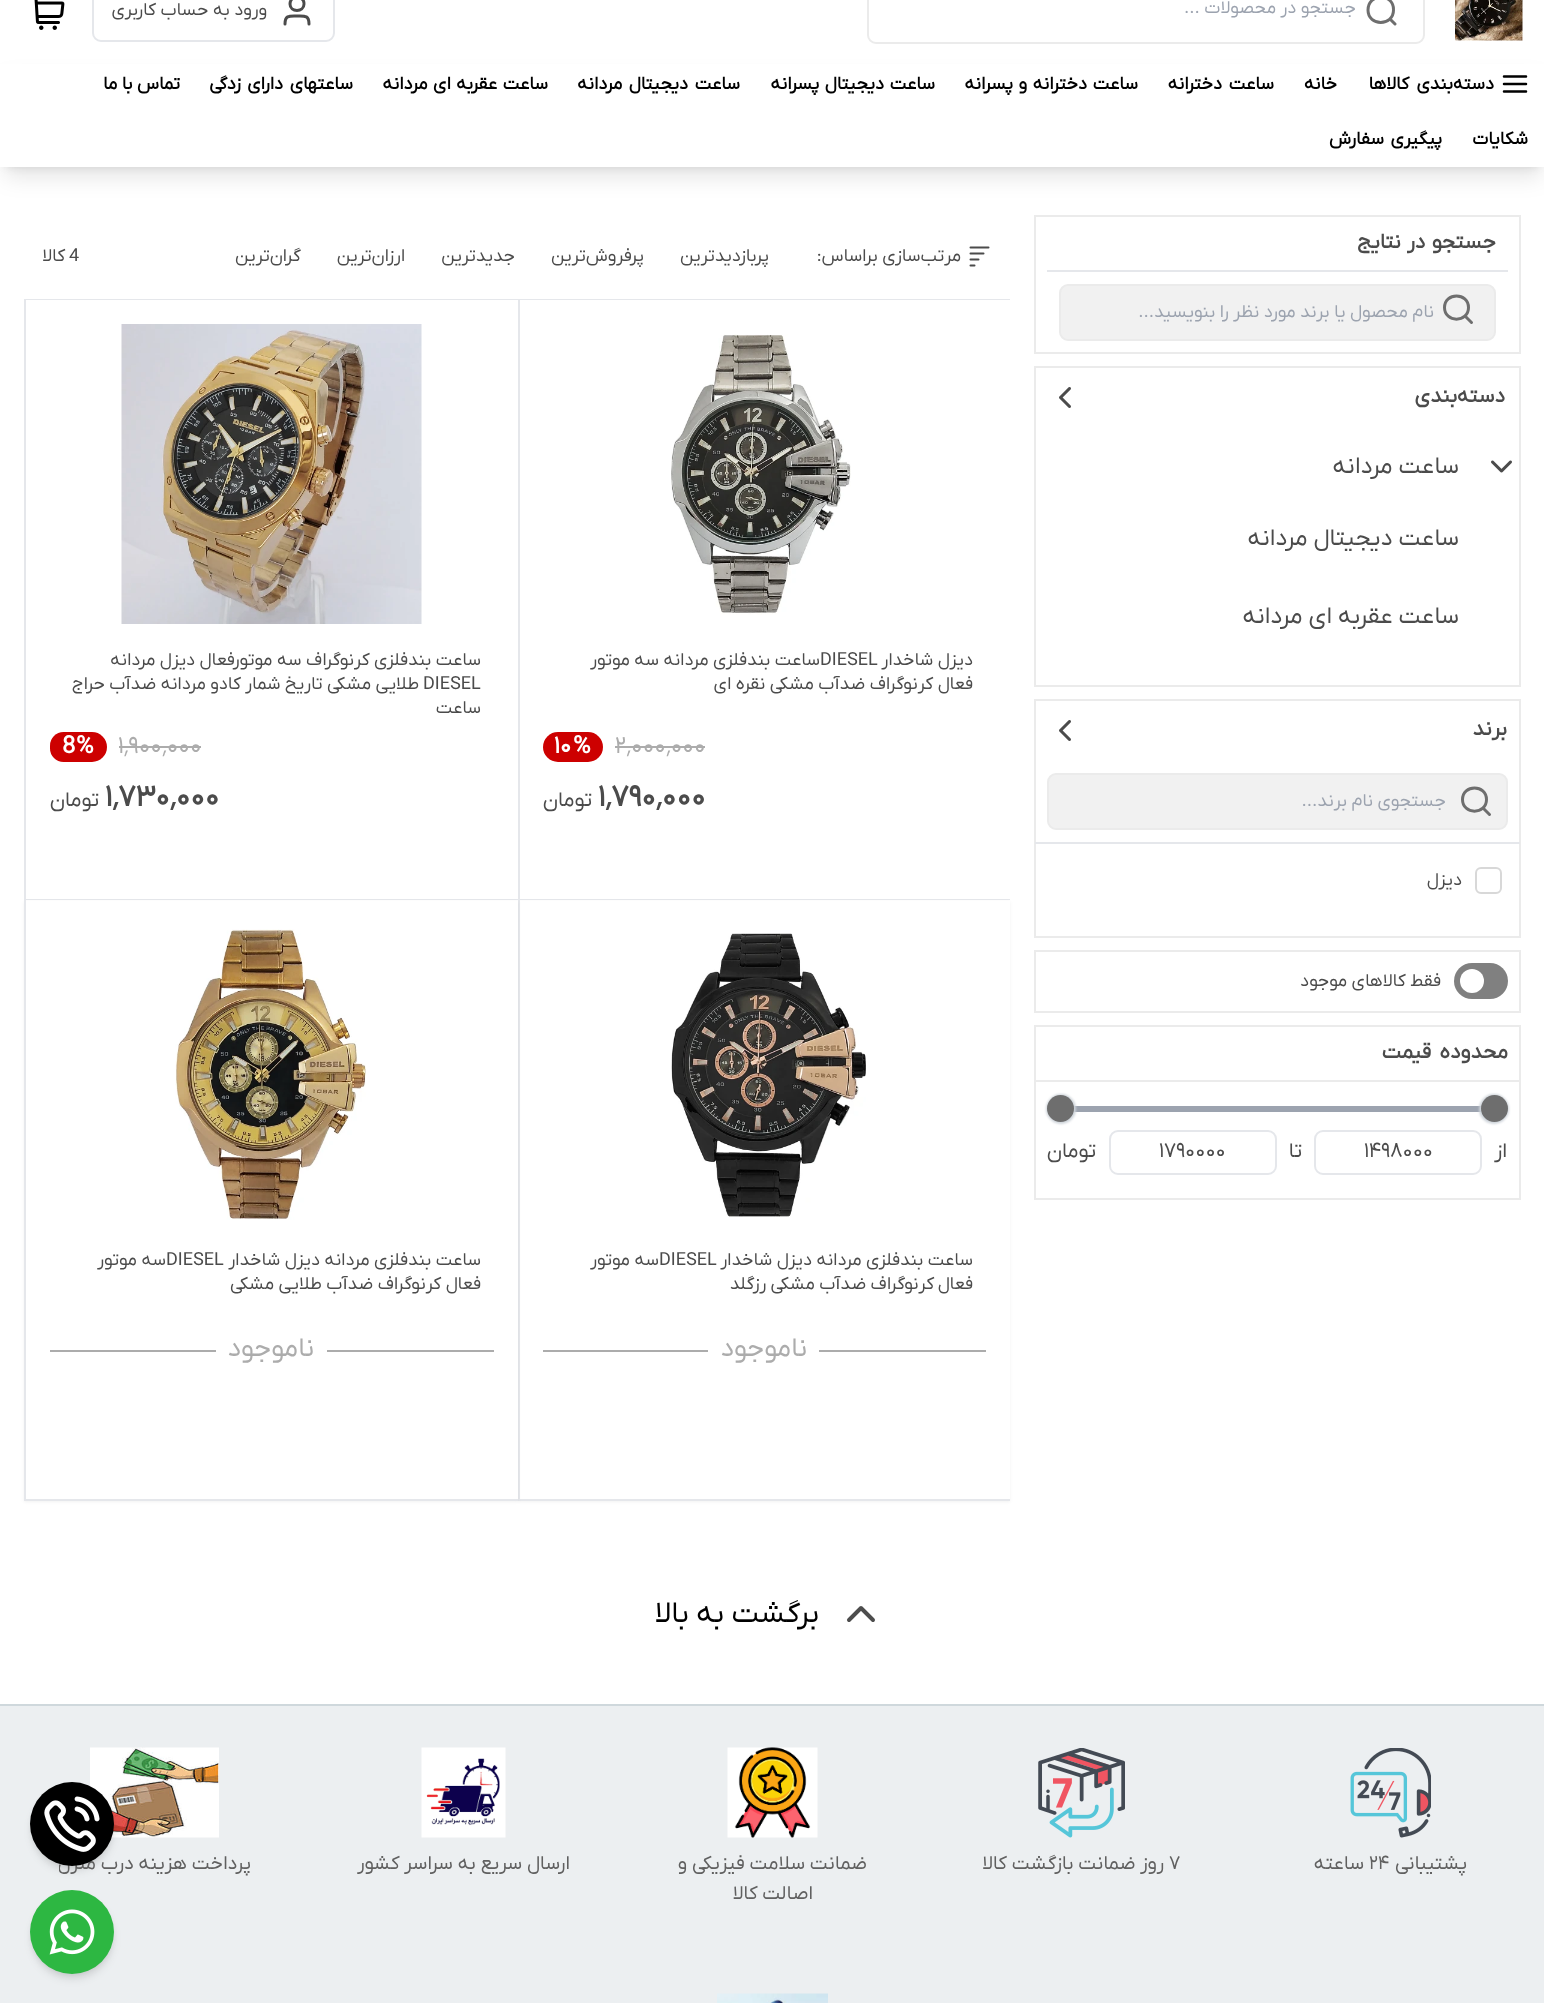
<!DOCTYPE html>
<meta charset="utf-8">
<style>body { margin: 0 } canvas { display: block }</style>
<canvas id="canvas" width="1544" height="2003"></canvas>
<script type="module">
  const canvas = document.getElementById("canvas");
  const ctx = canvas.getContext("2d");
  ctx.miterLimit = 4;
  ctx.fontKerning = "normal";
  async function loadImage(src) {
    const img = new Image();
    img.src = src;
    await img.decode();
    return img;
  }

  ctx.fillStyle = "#ffffff";
  ctx.fillRect(0, 0, 1544, 2003);
  ctx.drawImage(await loadImage("img1.png"), 1455, 0, 68, 41);
  ctx.beginPath();
  ctx.roundRect(868, -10, 556, 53, 8);
  ctx.strokeStyle = "#ebebeb";
  ctx.lineWidth = 2;
  ctx.stroke();
  ctx.beginPath();
  ctx.moveTo(1395, 24);
  ctx.lineTo(1390, 19);
  ctx.moveTo(1393.5, 10);
  ctx.bezierCurveTo(1393.5, 26.5, 1368, 26.5, 1368, 10);
  ctx.bezierCurveTo(1368, -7, 1393.5, -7, 1393.5, 9.5);
  ctx.strokeStyle = "#6e6e6e";
  ctx.lineWidth = 3;
  ctx.lineCap = "round";
  ctx.lineJoin = "round";
  ctx.stroke();
  ctx.direction = "rtl";
  ctx.font = "18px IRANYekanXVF";
  ctx.fillStyle = "#9ca3af";
  ctx.fillText("جستجو در محصولات ...", 1356, 13);
  ctx.beginPath();
  ctx.roundRect(93, -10, 241, 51, 8);
  ctx.strokeStyle = "#e5e7eb";
  ctx.lineWidth = 2;
  ctx.lineJoin = "miter";
  ctx.stroke();
  ctx.beginPath();
  ctx.moveTo(309, 24);
  ctx.bezierCurveTo(309, 15, 304.5, 16, 297, 16);
  ctx.bezierCurveTo(289.5, 16, 285, 15, 285, 24);
  ctx.moveTo(304, 4);
  ctx.bezierCurveTo(304, 12.5, 290, 12.5, 290, 4);
  ctx.bezierCurveTo(290, -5, 304, -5, 304, 3.5);
  ctx.strokeStyle = "#4b4b4b";
  ctx.lineWidth = 3;
  ctx.lineJoin = "round";
  ctx.stroke();
  ctx.fillStyle = "#4b4b4b";
  ctx.fillText("ورود به حساب کاربری", 267, 15);
  ctx.drawImage(await loadImage("img2.png"), 34, 0, 31, 30);
  ctx.fillStyle = "rgba(0, 0, 0, 0.1)";
  ctx.filter = "blur(4.5px)";
  ctx.beginPath();
  ctx.rect(6, 72, 1533, 95);
  ctx.fill();
  ctx.filter = "none";
  ctx.filter = "blur(11px)";
  ctx.beginPath();
  ctx.rect(5, 80, 1536, 97);
  ctx.fill();
  ctx.filter = "none";
  ctx.fillStyle = "#ffffff";
  ctx.fillRect(0, 64, 1544, 103);
  ctx.beginPath();
  ctx.moveTo(1504, 84);
  ctx.lineTo(1526, 84);
  ctx.moveTo(1504, 76.5);
  ctx.lineTo(1526, 76.5);
  ctx.moveTo(1504, 91.5);
  ctx.lineTo(1526, 91.5);
  ctx.strokeStyle = "#000000";
  ctx.lineWidth = 2.5;
  ctx.stroke();
  ctx.wordSpacing = "3px";
  ctx.font = "bold 18px IRANYekanXVF";
  ctx.fillStyle = "#000000";
  ctx.fillText("دسته‌بندی کالاها", 1494, 89);
  ctx.wordSpacing = "0px";
  ctx.fillText("خانه", 1337, 89);
  ctx.wordSpacing = "2px";
  ctx.fillText("ساعت دخترانه", 1274, 89);
  ctx.wordSpacing = "1px";
  ctx.fillText("ساعت دخترانه و پسرانه", 1138, 89);
  ctx.fillText("ساعت دیجیتال پسرانه", 935, 89);
  ctx.wordSpacing = "2px";
  ctx.fillText("ساعت دیجیتال مردانه", 740, 89);
  ctx.wordSpacing = "1px";
  ctx.fillText("ساعت عقربه ای مردانه", 548, 89);
  ctx.wordSpacing = "2px";
  ctx.fillText("ساعتهای دارای زدگی", 353, 89);
  ctx.wordSpacing = "0px";
  ctx.fillText("تماس با ما", 180, 89);
  ctx.fillText("شکایات", 1528, 144);
  ctx.wordSpacing = "2px";
  ctx.fillText("پیگیری سفارش", 1442, 144);
  ctx.strokeStyle = "#ebebeb";
  ctx.lineWidth = 2;
  ctx.lineJoin = "miter";
  ctx.strokeRect(1035, 216, 485, 137);
  ctx.fillStyle = "#e5e7eb";
  ctx.fillRect(1047, 270, 461, 2);
  ctx.wordSpacing = "1px";
  ctx.font = "bold 21px IRANYekanXVF";
  ctx.fillStyle = "#4b4b4b";
  ctx.fillText("جستجو در نتایج", 1496, 248);
  ctx.fillStyle = "#f1f1f1";
  ctx.beginPath();
  ctx.roundRect(1060, 285, 435, 55, 8);
  ctx.fill();
  ctx.stroke();
  ctx.beginPath();
  ctx.moveTo(1471.5, 322.5);
  ctx.lineTo(1465, 316);
  ctx.moveTo(1468.5, 307.5);
  ctx.bezierCurveTo(1468.5, 323, 1444.5, 323, 1444.5, 307.5);
  ctx.bezierCurveTo(1444.5, 292, 1468.5, 292, 1468.5, 307.5);
  ctx.strokeStyle = "#6e6e6e";
  ctx.lineWidth = 3;
  ctx.lineJoin = "round";
  ctx.stroke();
  ctx.wordSpacing = "0px";
  ctx.font = "18px IRANYekanXVF";
  ctx.fillStyle = "#9ca3af";
  ctx.fillText("نام محصول یا برند مورد نظر را بنویسید...", 1434, 317);
  ctx.strokeStyle = "#ebebeb";
  ctx.lineWidth = 2;
  ctx.lineJoin = "miter";
  ctx.strokeRect(1035, 367, 485, 319);
  ctx.font = "bold 21px IRANYekanXVF";
  ctx.fillStyle = "#4b4b4b";
  ctx.fillText("دسته‌بندی", 1505, 402);
  ctx.drawImage(await loadImage("img3.png"), 1059, 387, 12, 21);
  ctx.drawImage(await loadImage("img4.png"), 1491, 460, 21, 13);
  ctx.font = "24px IRANYekanXVF";
  ctx.fillText("ساعت مردانه", 1459, 473);
  ctx.fillText("ساعت دیجیتال مردانه", 1459, 545);
  ctx.fillText("ساعت عقربه ای مردانه", 1459, 623);
  ctx.strokeRect(1035, 700, 485, 237);
  ctx.font = "bold 21px IRANYekanXVF";
  ctx.fillText("برند", 1507, 735);
  ctx.drawImage(await loadImage("img3.png"), 1059, 720, 12, 21);
  ctx.fillStyle = "#f1f1f1";
  ctx.beginPath();
  ctx.roundRect(1048, 774, 459, 55, 8);
  ctx.fill();
  ctx.stroke();
  ctx.beginPath();
  ctx.moveTo(1489.5, 814.5);
  ctx.lineTo(1483, 808);
  ctx.moveTo(1486.5, 799.5);
  ctx.bezierCurveTo(1486.5, 815, 1462.5, 815, 1462.5, 799.5);
  ctx.bezierCurveTo(1462.5, 784, 1486.5, 784, 1486.5, 799.5);
  ctx.strokeStyle = "#6e6e6e";
  ctx.lineWidth = 3;
  ctx.lineJoin = "round";
  ctx.stroke();
  ctx.font = "18px IRANYekanXVF";
  ctx.fillStyle = "#9ca3af";
  ctx.fillText("جستجوی نام برند...", 1446, 806);
  ctx.fillStyle = "#e5e7eb";
  ctx.fillRect(1035, 842, 485, 2);
  ctx.beginPath();
  ctx.roundRect(1476, 868, 25, 25, 5);
  ctx.strokeStyle = "#d8d8d8";
  ctx.lineWidth = 2;
  ctx.lineJoin = "miter";
  ctx.stroke();
  ctx.fillStyle = "#4b4b4b";
  ctx.fillText("دیزل", 1462, 885);
  ctx.strokeStyle = "#ebebeb";
  ctx.strokeRect(1035, 951, 485, 61);
  ctx.fillStyle = "#808080";
  ctx.beginPath();
  ctx.roundRect(1454, 963, 54, 36, 18);
  ctx.fill();
  ctx.fillStyle = "#ffffff";
  ctx.beginPath();
  ctx.arc(1472, 981, 12, 0, Math.PI * 2);
  ctx.fill();
  ctx.fillStyle = "#4b4b4b";
  ctx.fillText("فقط کالاهای موجود", 1441, 986);
  ctx.strokeRect(1035, 1026, 485, 173);
  ctx.fillStyle = "#ebebeb";
  ctx.fillRect(1035, 1080, 485, 2);
  ctx.wordSpacing = "3px";
  ctx.font = "bold 21px IRANYekanXVF";
  ctx.fillStyle = "#4b4b4b";
  ctx.fillText("محدوده قیمت", 1508, 1058);
  ctx.fillStyle = "#9ca3af";
  ctx.beginPath();
  ctx.roundRect(1047, 1106, 461, 6, 3);
  ctx.fill();
  ctx.fillStyle = "#ced4da";
  ctx.filter = "blur(1px)";
  ctx.beginPath();
  ctx.roundRect(1479, 1094, 30, 30, 15);
  ctx.fill();
  ctx.filter = "none";
  ctx.fillStyle = "#6e6e6e";
  ctx.beginPath();
  ctx.arc(1494.5, 1108.5, 13.5, 0, Math.PI * 2);
  ctx.fill();
  ctx.fillStyle = "#ced4da";
  ctx.filter = "blur(1px)";
  ctx.beginPath();
  ctx.roundRect(1046, 1094, 30, 30, 15);
  ctx.fill();
  ctx.filter = "none";
  ctx.fillStyle = "#6e6e6e";
  ctx.beginPath();
  ctx.arc(1060.5, 1108.5, 13.5, 0, Math.PI * 2);
  ctx.fill();
  ctx.wordSpacing = "0px";
  ctx.font = "21px IRANYekanXVF";
  ctx.fillStyle = "#4b4b4b";
  ctx.fillText("از", 1507, 1157);
  ctx.beginPath();
  ctx.roundRect(1315, 1131, 166, 43, 8);
  ctx.strokeStyle = "#e5e7eb";
  ctx.stroke();
  ctx.direction = "ltr";
  ctx.font = "21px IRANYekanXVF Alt";
  ctx.fillText("1498000", 1364, 1157);
  ctx.direction = "rtl";
  ctx.font = "21px IRANYekanXVF";
  ctx.fillText("تا", 1302, 1157);
  ctx.beginPath();
  ctx.roundRect(1110, 1131, 166, 43, 8);
  ctx.stroke();
  ctx.direction = "ltr";
  ctx.font = "21px IRANYekanXVF Alt";
  ctx.fillText("1790000", 1159, 1157);
  ctx.direction = "rtl";
  ctx.font = "21px IRANYekanXVF";
  ctx.fillText("تومان", 1096, 1157);
  ctx.beginPath();
  ctx.moveTo(983.5, 253.5);
  ctx.lineTo(970.5, 253.5);
  ctx.moveTo(974.5, 265.5);
  ctx.lineTo(970.5, 265.5);
  ctx.moveTo(988.5, 247.5);
  ctx.lineTo(970.5, 247.5);
  ctx.moveTo(978.5, 259.5);
  ctx.lineTo(970.5, 259.5);
  ctx.strokeStyle = "#4b4b4b";
  ctx.lineJoin = "round";
  ctx.stroke();
  ctx.font = "18px IRANYekanXVF";
  ctx.fillText("مرتب‌سازی براساس:", 961, 261);
  ctx.fillText("پربازدیدترین", 769, 261);
  ctx.fillText("پرفروش‌ترین", 644, 261);
  ctx.fillText("جدیدترین", 515, 261);
  ctx.fillText("ارزان‌ترین", 405, 261);
  ctx.fillText("گران‌ترین", 301, 261);
  ctx.direction = "ltr";
  ctx.fillText("4", 69, 261);
  ctx.direction = "rtl";
  ctx.fillText("کالا", 65, 261);
  ctx.fillStyle = "#e5e7eb";
  ctx.fillRect(24, 299, 986, 1);
  ctx.fillRect(24, 899, 986, 1);
  ctx.fillRect(518, 300, 2, 600);
  ctx.drawImage(await loadImage("img5.png"), 671, 334, 180, 281);
  ctx.fillStyle = "#4b4b4b";
  ctx.fillText("دیزل شاخدار", 973, 665);
  ctx.direction = "ltr";
  ctx.fillText("DIESEL", 820, 665);
  ctx.direction = "rtl";
  ctx.fillText("ساعت بندفلزی مردانه سه موتور", 820, 665);
  ctx.fillText("فعال کرنوگراف ضدآب مشکی نقره ای", 973, 689);
  ctx.direction = "ltr";
  ctx.font = "24px IRANYekanXVF";
  ctx.fillStyle = "#acacac";
  ctx.fillText("۲٬۰۰۰٬۰۰۰", 615, 753);
  ctx.fillRect(615, 746, 90, 2);
  ctx.fillStyle = "#cd0000";
  ctx.beginPath();
  ctx.roundRect(573, 732, 30, 30, [0, 15, 15, 0]);
  ctx.fill();
  ctx.font = "bold 24px IRANYekanXVF";
  ctx.fillStyle = "#ffffff";
  ctx.fillText("%", 573, 753);
  ctx.fillStyle = "#cd0000";
  ctx.beginPath();
  ctx.roundRect(543, 732, 30, 30, [15, 0, 0, 15]);
  ctx.fill();
  ctx.font = "bold 24px IRANYekanXVF Alt";
  ctx.fillStyle = "#ffffff";
  ctx.fillText("10", 554, 753);
  ctx.font = "bold 30px IRANYekanXVF";
  ctx.fillStyle = "#4b4b4b";
  ctx.fillText("۱٬۷۹۰٬۰۰۰", 598, 806);
  ctx.direction = "rtl";
  ctx.font = "21px IRANYekanXVF";
  ctx.fillText("تومان", 592, 806);
  ctx.fillStyle = "#e5e7eb";
  ctx.fillRect(24, 300, 2, 600);
  ctx.drawImage(await loadImage("img6.png"), 121, 324, 301, 300);
  ctx.font = "18px IRANYekanXVF";
  ctx.fillStyle = "#4b4b4b";
  ctx.fillText("ساعت بندفلزی کرنوگراف سه موتورفعال دیزل مردانه", 481, 665);
  ctx.direction = "ltr";
  ctx.fillText("DIESEL", 423, 689);
  ctx.direction = "rtl";
  ctx.fillText("طلایی مشکی تاریخ شمار کادو مردانه ضدآب حراج", 419, 689);
  ctx.fillText("ساعت", 481, 713);
  ctx.direction = "ltr";
  ctx.font = "24px IRANYekanXVF";
  ctx.fillStyle = "#acacac";
  ctx.fillText("۱٬۹۰۰٬۰۰۰", 118, 753);
  ctx.fillRect(119, 746, 82, 2);
  ctx.fillStyle = "#cd0000";
  ctx.beginPath();
  ctx.roundRect(77, 732, 30, 30, [0, 15, 15, 0]);
  ctx.fill();
  ctx.font = "bold 24px IRANYekanXVF";
  ctx.fillStyle = "#ffffff";
  ctx.fillText("%", 76, 753);
  ctx.fillStyle = "#cd0000";
  ctx.beginPath();
  ctx.roundRect(50, 732, 27, 30, [13.5, 0, 0, 13.5]);
  ctx.fill();
  ctx.fillStyle = "#ffffff";
  ctx.fillText("8", 62, 753);
  ctx.font = "bold 30px IRANYekanXVF";
  ctx.fillStyle = "#4b4b4b";
  ctx.fillText("۱٬۷۳۰٬۰۰۰", 105, 806);
  ctx.direction = "rtl";
  ctx.font = "21px IRANYekanXVF";
  ctx.fillText("تومان", 99, 806);
  ctx.fillStyle = "rgba(0, 0, 0, 0.05)";
  ctx.filter = "blur(1.5px)";
  ctx.beginPath();
  ctx.rect(518, 902, 492, 600);
  ctx.fill();
  ctx.filter = "none";
  ctx.fillStyle = "#ffffff";
  ctx.fillRect(520, 901, 490, 598);
  ctx.fillStyle = "#e5e7eb";
  ctx.fillRect(518, 1499, 492, 2);
  ctx.fillRect(518, 900, 2, 600);
  ctx.drawImage(await loadImage("img7.png"), 671, 933, 195, 284);
  ctx.font = "18px IRANYekanXVF";
  ctx.fillStyle = "#4b4b4b";
  ctx.fillText("ساعت بندفلزی مردانه دیزل شاخدار", 973, 1265);
  ctx.direction = "ltr";
  ctx.fillText("DIESEL", 659, 1265);
  ctx.direction = "rtl";
  ctx.fillText("سه موتور", 659, 1265);
  ctx.fillText("فعال", 973, 1289);
  ctx.fillText("کرنوگراف ضدآب مشکی رزگلد", 934, 1289);
  ctx.fillStyle = "#acacac";
  ctx.fillRect(819, 1350, 167, 2);
  ctx.font = "27px IRANYekanXVF";
  ctx.fillText("ناموجود", 807, 1356);
  ctx.fillRect(543, 1350, 165, 2);
  ctx.fillStyle = "rgba(0, 0, 0, 0.05)";
  ctx.filter = "blur(1.5px)";
  ctx.beginPath();
  ctx.rect(24, 902, 494, 600);
  ctx.fill();
  ctx.filter = "none";
  ctx.fillStyle = "#ffffff";
  ctx.fillRect(26, 901, 492, 598);
  ctx.fillStyle = "#e5e7eb";
  ctx.fillRect(24, 1499, 494, 2);
  ctx.fillRect(24, 900, 2, 600);
  ctx.drawImage(await loadImage("img8.png"), 175, 929, 191, 291);
  ctx.font = "18px IRANYekanXVF";
  ctx.fillStyle = "#4b4b4b";
  ctx.fillText("ساعت بندفلزی مردانه دیزل شاخدار", 481, 1265);
  ctx.direction = "ltr";
  ctx.fillText("DIESEL", 166, 1265);
  ctx.direction = "rtl";
  ctx.fillText("سه موتور", 166, 1265);
  ctx.fillText("فعال کرنوگراف ضدآب طلایی مشکی", 481, 1289);
  ctx.fillStyle = "#acacac";
  ctx.fillRect(327, 1350, 167, 2);
  ctx.font = "27px IRANYekanXVF";
  ctx.fillText("ناموجود", 314, 1356);
  ctx.fillRect(50, 1350, 166, 2);
  ctx.beginPath();
  ctx.moveTo(873, 1620);
  ctx.lineTo(861, 1608);
  ctx.lineTo(849, 1620);
  ctx.strokeStyle = "#4d4d4d";
  ctx.lineWidth = 4;
  ctx.stroke();
  ctx.font = "30px IRANYekanXVF";
  ctx.fillStyle = "#000000";
  ctx.fillText("برگشت به بالا", 819, 1622);
  ctx.fillStyle = "#eceff1";
  ctx.fillRect(0, 1706, 1544, 297);
  ctx.drawImage(await loadImage("img15.png"), 90, 1747, 129, 91);
  ctx.fillStyle = "rgba(0, 0, 0, 0.1)";
  ctx.filter = "blur(3px)";
  ctx.beginPath();
  ctx.roundRect(33, 1788, 78, 78, 39);
  ctx.fill();
  ctx.filter = "none";
  ctx.filter = "blur(4.5px)";
  ctx.beginPath();
  ctx.roundRect(32, 1790, 81, 81, 40.5);
  ctx.fill();
  ctx.filter = "none";
  ctx.save();
  ctx.beginPath();
  ctx.rect(59, 1838, 193, 42);
  ctx.clip();
  ctx.font = "19.5px IRANYekanXVF";
  ctx.fillStyle = "#606060";
  ctx.fillText("پرداخت هزینه درب منزل", 251, 1869);
  ctx.restore();
  ctx.fillStyle = "#000000";
  ctx.beginPath();
  ctx.arc(72, 1824, 42, 0, Math.PI * 2);
  ctx.fill();
  ctx.drawImage(await loadImage("img9.png"), 44, 1796, 56, 56);
  ctx.fillStyle = "rgba(0, 0, 0, 0.1)";
  ctx.filter = "blur(3px)";
  ctx.beginPath();
  ctx.roundRect(33, 1896, 78, 78, 39);
  ctx.fill();
  ctx.filter = "none";
  ctx.filter = "blur(4.5px)";
  ctx.beginPath();
  ctx.roundRect(32, 1898, 81, 81, 40.5);
  ctx.fill();
  ctx.filter = "none";
  ctx.fillStyle = "#2db742";
  ctx.beginPath();
  ctx.arc(72, 1932, 42, 0, Math.PI * 2);
  ctx.fill();
  ctx.drawImage(await loadImage("img10.png"), 49, 1909, 46, 46);
  ctx.fillStyle = "#cfd8dc";
  ctx.fillRect(0, 1704, 1544, 2);
  ctx.drawImage(await loadImage("img11.png"), 1350, 1748, 81, 90);
  ctx.font = "19.5px IRANYekanXVF";
  ctx.fillStyle = "#606060";
  ctx.fillText("پشتیبانی", 1467, 1869);
  ctx.direction = "ltr";
  ctx.fillText("۲۴", 1369, 1869);
  ctx.direction = "rtl";
  ctx.fillText("ساعته", 1364, 1869);
  ctx.drawImage(await loadImage("img12.png"), 1038, 1748, 87, 90);
  ctx.direction = "ltr";
  ctx.fillText("۷", 1169, 1869);
  ctx.direction = "rtl";
  ctx.fillText("روز ضمانت بازگشت کالا", 1164, 1869);
  ctx.drawImage(await loadImage("img13.png"), 727, 1747, 91, 91);
  ctx.fillText("ضمانت سلامت فیزیکی و", 867, 1869);
  ctx.fillText("اصالت کالا", 813, 1899);
  ctx.drawImage(await loadImage("img14.png"), 421, 1747, 85, 91);
  ctx.fillText("ارسال سریع به سراسر کشور", 570, 1869);
  ctx.drawImage(await loadImage("img16.png"), 717, 1993, 111, 10);
</script>
